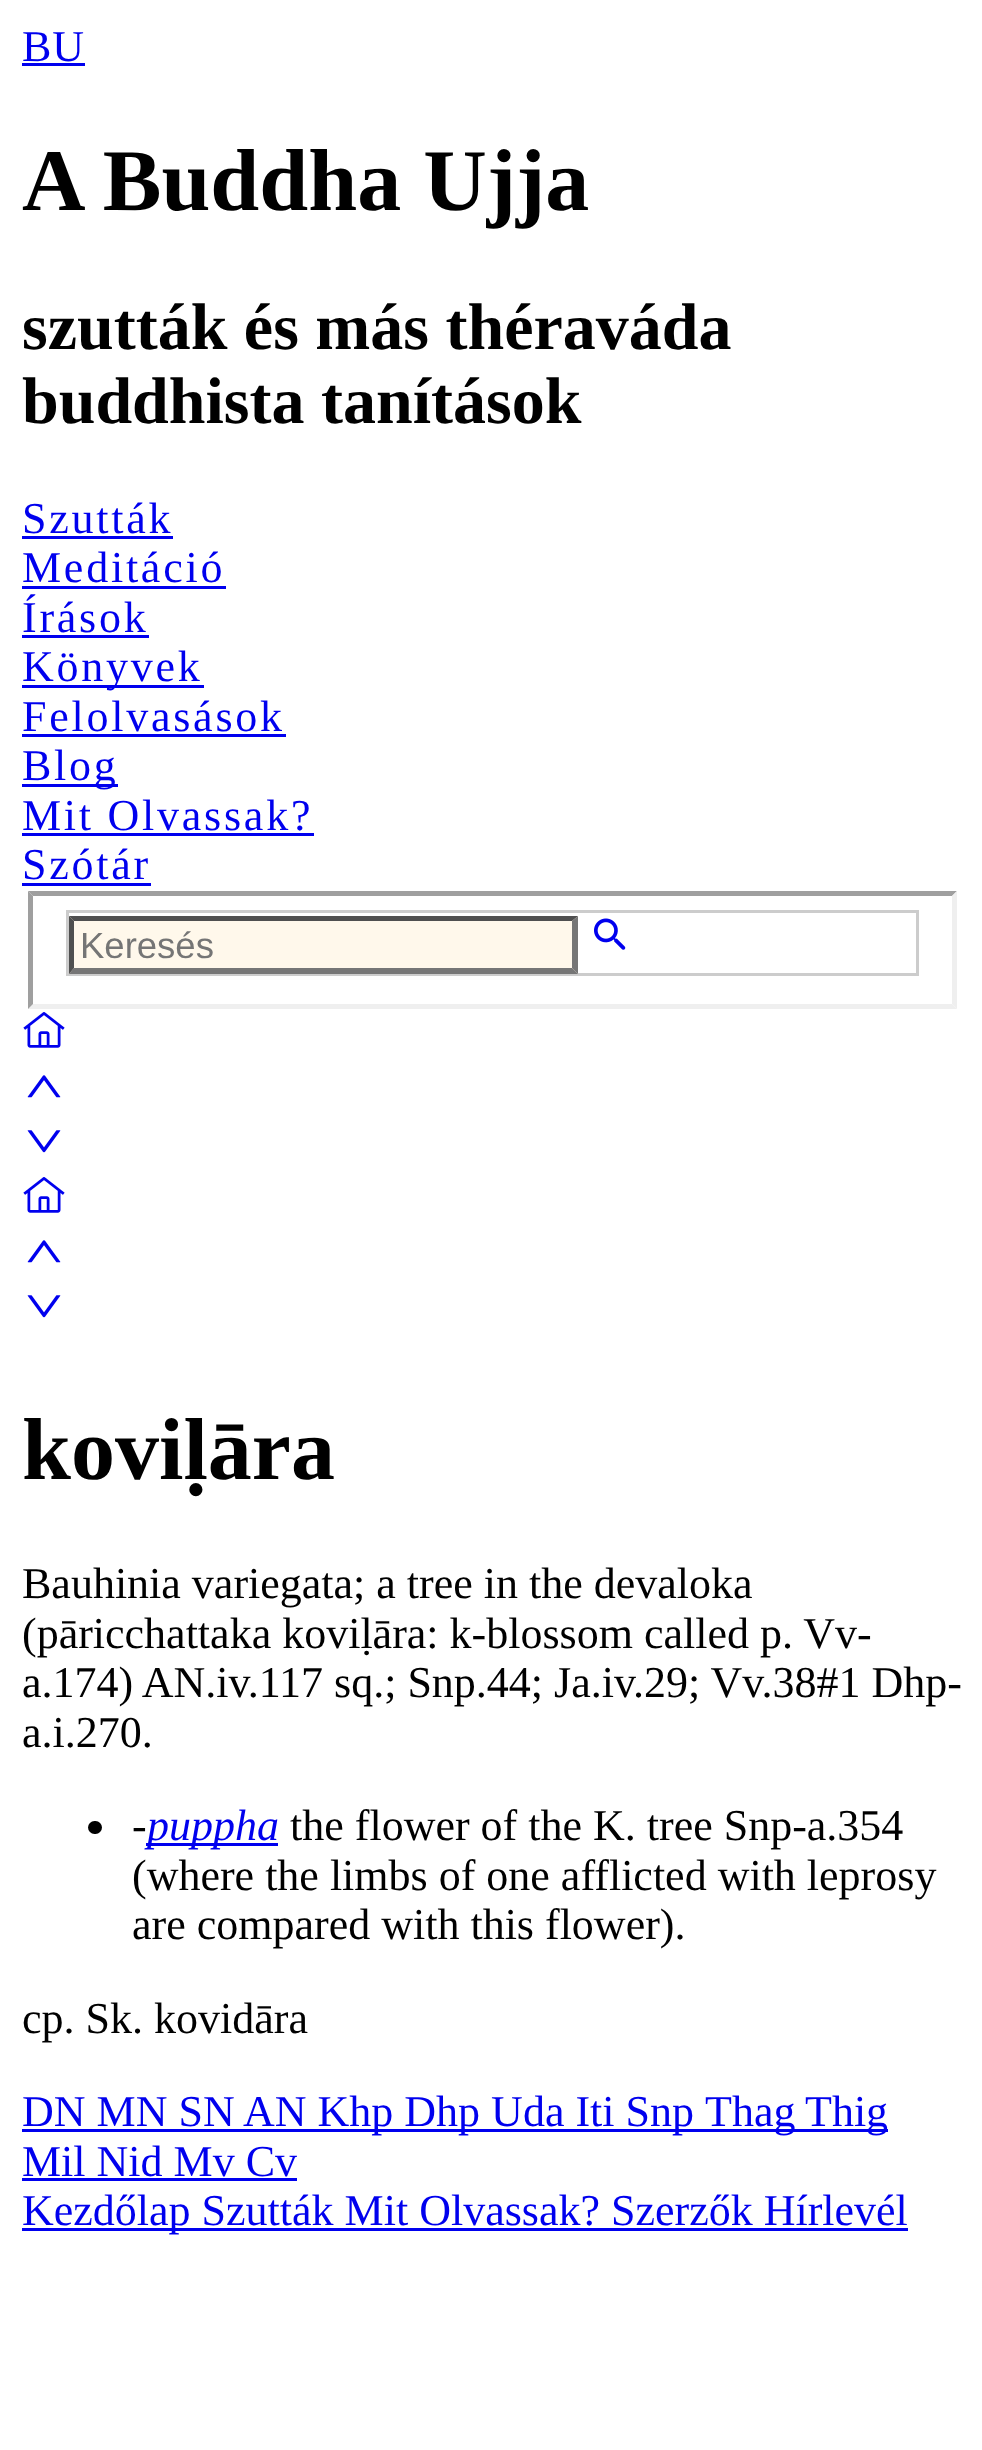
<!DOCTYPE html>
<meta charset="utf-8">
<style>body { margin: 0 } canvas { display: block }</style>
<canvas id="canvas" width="982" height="2450"></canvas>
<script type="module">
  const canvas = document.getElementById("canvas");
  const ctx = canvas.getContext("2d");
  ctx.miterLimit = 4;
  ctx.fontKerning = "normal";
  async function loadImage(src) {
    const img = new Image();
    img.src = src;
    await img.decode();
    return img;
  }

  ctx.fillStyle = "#ffffff";
  ctx.fillRect(0, 0, 982, 2450);
  ctx.letterSpacing = "1px";
  ctx.font = "44px Liberation Serif";
  ctx.fillStyle = "#0000ee";
  ctx.fillText("BU", 22, 61);
  ctx.fillRect(22, 63, 63, 3);
  ctx.letterSpacing = "0px";
  ctx.font = "bold 88px Liberation Serif";
  ctx.fillStyle = "#000000";
  ctx.fillText("A Buddha Ujja", 22, 210);
  ctx.font = "bold 66px Liberation Serif";
  ctx.fillText("szutták és más théraváda", 22, 349);
  ctx.fillText("buddhista tanítások", 22, 423);
  ctx.letterSpacing = "2.75px";
  ctx.font = "44px Liberation Serif";
  ctx.fillStyle = "#0000ee";
  ctx.fillText("Szutták", 22, 533);
  ctx.fillRect(22, 536, 151, 3);
  ctx.fillText("Meditáció", 22, 582);
  ctx.fillRect(22, 586, 204, 3);
  ctx.fillText("Írások", 22, 632);
  ctx.fillRect(22, 635, 127, 3);
  ctx.fillRect(22, 685, 182, 3);
  ctx.fillText("Könyvek", 22, 681);
  ctx.fillText("Felolvasások", 22, 731);
  ctx.fillRect(22, 734, 264, 3);
  ctx.fillRect(22, 784, 96, 3);
  ctx.fillText("Blog", 22, 780);
  ctx.fillText("Mit Olvassak?", 22, 830);
  ctx.fillRect(22, 833, 292, 3);
  ctx.fillText("Szótár", 22, 879);
  ctx.fillRect(22, 883, 129, 3);
  ctx.fillStyle = "#9f9f9f";
  ctx.beginPath();
  ctx.moveTo(28, 891);
  ctx.lineTo(957, 891);
  ctx.lineTo(952, 896);
  ctx.lineTo(33, 896);
  ctx.closePath();
  ctx.fill();
  ctx.fillStyle = "#efefef";
  ctx.beginPath();
  ctx.moveTo(957, 891);
  ctx.lineTo(957, 1009);
  ctx.lineTo(952, 1004);
  ctx.lineTo(952, 896);
  ctx.closePath();
  ctx.fill();
  ctx.beginPath();
  ctx.moveTo(957, 1009);
  ctx.lineTo(28, 1009);
  ctx.lineTo(33, 1004);
  ctx.lineTo(952, 1004);
  ctx.closePath();
  ctx.fill();
  ctx.fillStyle = "#9f9f9f";
  ctx.beginPath();
  ctx.moveTo(28, 1009);
  ctx.lineTo(28, 891);
  ctx.lineTo(33, 896);
  ctx.lineTo(33, 1004);
  ctx.closePath();
  ctx.fill();
  ctx.strokeStyle = "#cccccc";
  ctx.lineWidth = 3;
  ctx.strokeRect(67.5, 911.5, 850, 63);
  ctx.fillStyle = "#fff8eb";
  ctx.fillRect(69, 916, 509, 58);
  ctx.fillStyle = "#4f4f4f";
  ctx.beginPath();
  ctx.moveTo(69, 916);
  ctx.lineTo(578, 916);
  ctx.lineTo(572, 921);
  ctx.lineTo(74, 921);
  ctx.closePath();
  ctx.fill();
  ctx.fillStyle = "#767676";
  ctx.beginPath();
  ctx.moveTo(578, 916);
  ctx.lineTo(578, 974);
  ctx.lineTo(572, 968);
  ctx.lineTo(572, 921);
  ctx.closePath();
  ctx.fill();
  ctx.beginPath();
  ctx.moveTo(578, 974);
  ctx.lineTo(69, 974);
  ctx.lineTo(74, 968);
  ctx.lineTo(572, 968);
  ctx.closePath();
  ctx.fill();
  ctx.fillStyle = "#4f4f4f";
  ctx.beginPath();
  ctx.moveTo(69, 974);
  ctx.lineTo(69, 916);
  ctx.lineTo(74, 921);
  ctx.lineTo(74, 968);
  ctx.closePath();
  ctx.fill();
  ctx.letterSpacing = "0px";
  ctx.font = "36.5px Liberation Sans";
  ctx.fillStyle = "#757575";
  ctx.fillText("Keresés", 80, 958);
  ctx.drawImage(await loadImage("img1.png"), 594, 918, 32, 32);
  ctx.drawImage(await loadImage("img2.png"), 23, 1012, 42, 36);
  ctx.drawImage(await loadImage("img3.png"), 27, 1075, 34, 23);
  ctx.drawImage(await loadImage("img4.png"), 27, 1130, 34, 23);
  ctx.drawImage(await loadImage("img2.png"), 23, 1177, 42, 36);
  ctx.drawImage(await loadImage("img3.png"), 27, 1240, 34, 23);
  ctx.drawImage(await loadImage("img4.png"), 27, 1295, 34, 23);
  ctx.font = "bold 88px Liberation Serif";
  ctx.fillStyle = "#000000";
  ctx.fillText("koviḷāra", 22, 1479);
  ctx.font = "44px Liberation Serif";
  ctx.fillText("Bauhinia variegata; a tree in the devaloka", 22, 1598);
  ctx.fillText("(pāricchattaka koviḷāra: k-blossom called p. Vv-", 22, 1648);
  ctx.fillText("a.174) AN.iv.117 sq.; Snp.44; Ja.iv.29; Vv.38#1 Dhp-", 22, 1697);
  ctx.fillText("a.i.270.", 22, 1747);
  ctx.beginPath();
  ctx.roundRect(88, 1821, 14, 13, 6.5);
  ctx.fill();
  ctx.font = "italic 44px Liberation Serif";
  ctx.fillText("-", 132, 1840);
  ctx.fillStyle = "#0000ee";
  ctx.fillRect(146, 1843, 132, 3);
  ctx.fillText("puppha", 147, 1840);
  ctx.font = "44px Liberation Serif";
  ctx.fillStyle = "#000000";
  ctx.fillText("the flower of the K. tree Snp-a.354", 290, 1840);
  ctx.fillText("(where the limbs of one afflicted with leprosy", 132, 1890);
  ctx.fillText("are compared with this flower).", 132, 1939);
  ctx.fillText("cp. Sk. kovidāra", 22, 2033);
  ctx.fillStyle = "#0000ee";
  ctx.fillText("DN MN SN", 22, 2126);
  ctx.fillRect(22, 2129, 866, 3);
  ctx.fillText("AN Khp Dhp Uda Iti Snp", 243, 2126);
  ctx.fillText("Thag", 705, 2126);
  ctx.fillText("Thig", 805, 2126);
  ctx.fillText("Mil Nid Mv Cv", 22, 2176);
  ctx.fillRect(22, 2178, 275, 3);
  ctx.fillRect(22, 2228, 886, 3);
  ctx.fillText("Kezdőlap Szutták Mit Olvassak? Szerzők Hírlevél", 22, 2225);
</script>
